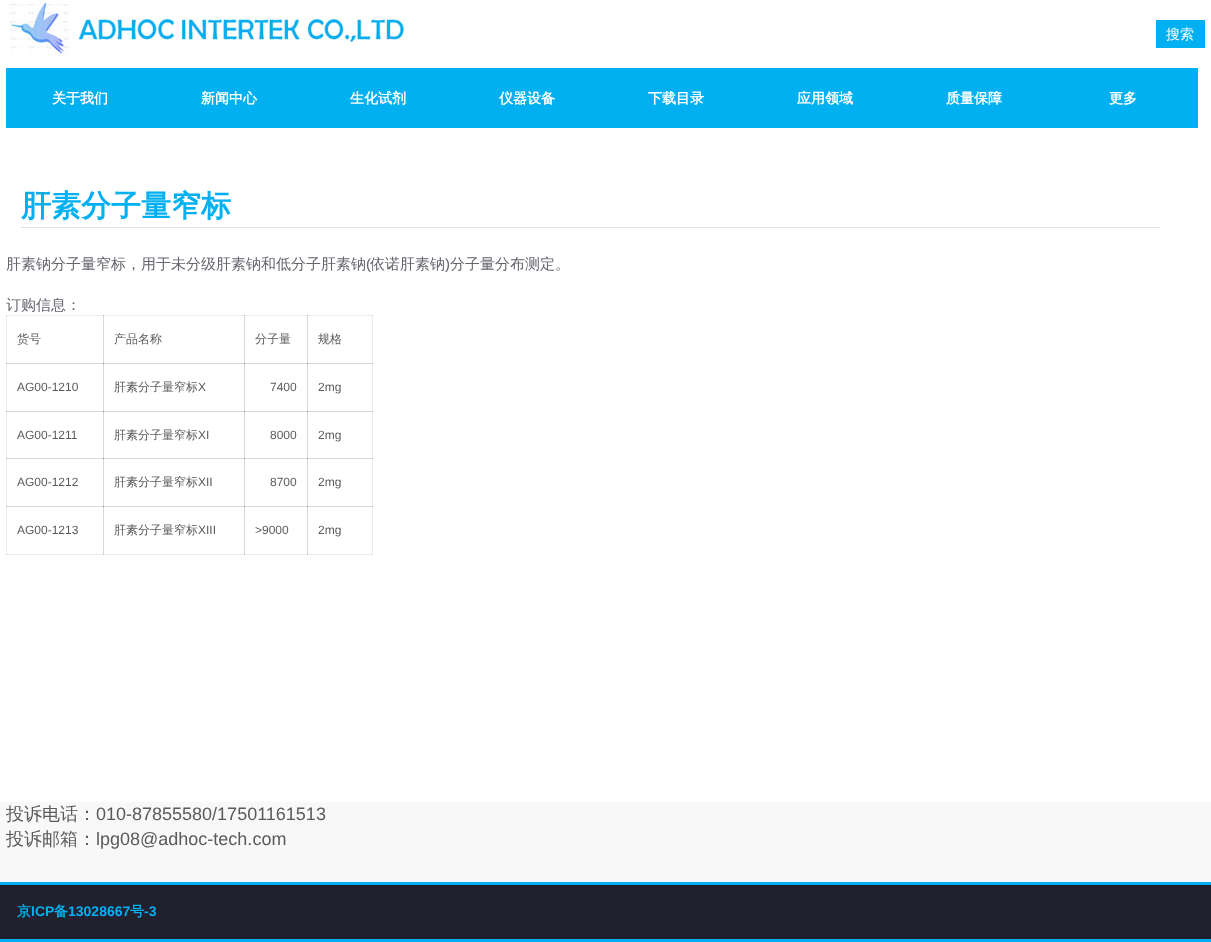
<!DOCTYPE html>
<meta charset="utf-8">
<style>body { margin: 0 } canvas { display: block }</style>
<canvas id="canvas" width="1211" height="942"></canvas>
<script type="module">
  const canvas = document.getElementById("canvas");
  const ctx = canvas.getContext("2d");
  ctx.miterLimit = 4;
  ctx.fontKerning = "normal";
  async function loadImage(src) {
    const img = new Image();
    img.src = src;
    await img.decode();
    return img;
  }

  ctx.fillStyle = "#ffffff";
  ctx.fillRect(0, 0, 1211, 942);
  ctx.fillStyle = "#ebebeb";
  ctx.fillRect(6, 315, 1, 240);
  ctx.fillRect(6, 315, 98, 1);
  ctx.fillStyle = "#d9d9d9";
  ctx.fillRect(6, 315, 1, 1);
  ctx.fillRect(103, 315, 1, 49);
  ctx.fillStyle = "#ebebeb";
  ctx.fillRect(103, 315, 142, 1);
  ctx.fillStyle = "#b9b9b9";
  ctx.fillRect(103, 315, 1, 1);
  ctx.fillStyle = "#d9d9d9";
  ctx.fillRect(244, 315, 1, 49);
  ctx.fillStyle = "#ebebeb";
  ctx.fillRect(244, 315, 64, 1);
  ctx.fillStyle = "#b9b9b9";
  ctx.fillRect(244, 315, 1, 1);
  ctx.fillStyle = "#d9d9d9";
  ctx.fillRect(307, 315, 1, 49);
  ctx.fillStyle = "#ebebeb";
  ctx.fillRect(372, 315, 1, 192);
  ctx.fillStyle = "#d9d9d9";
  ctx.fillRect(6, 363, 98, 1);
  ctx.fillStyle = "#b9b9b9";
  ctx.fillRect(6, 363, 1, 1);
  ctx.fillStyle = "#d9d9d9";
  ctx.fillRect(103, 363, 1, 49);
  ctx.fillRect(103, 363, 142, 1);
  ctx.fillStyle = "#8b8b8b";
  ctx.fillRect(103, 363, 1, 1);
  ctx.fillStyle = "#d9d9d9";
  ctx.fillRect(244, 363, 1, 49);
  ctx.fillRect(244, 363, 64, 1);
  ctx.fillStyle = "#8b8b8b";
  ctx.fillRect(244, 363, 1, 1);
  ctx.fillStyle = "#d9d9d9";
  ctx.fillRect(307, 363, 1, 49);
  ctx.fillRect(6, 411, 98, 1);
  ctx.fillStyle = "#b9b9b9";
  ctx.fillRect(6, 411, 1, 1);
  ctx.fillStyle = "#d9d9d9";
  ctx.fillRect(103, 411, 1, 48);
  ctx.fillRect(103, 411, 142, 1);
  ctx.fillStyle = "#8b8b8b";
  ctx.fillRect(103, 411, 1, 1);
  ctx.fillStyle = "#d9d9d9";
  ctx.fillRect(244, 411, 1, 48);
  ctx.fillRect(244, 411, 64, 1);
  ctx.fillStyle = "#8b8b8b";
  ctx.fillRect(244, 411, 1, 1);
  ctx.fillStyle = "#d9d9d9";
  ctx.fillRect(307, 411, 1, 48);
  ctx.fillRect(6, 458, 98, 1);
  ctx.fillStyle = "#b9b9b9";
  ctx.fillRect(6, 458, 1, 1);
  ctx.fillStyle = "#d9d9d9";
  ctx.fillRect(103, 458, 1, 49);
  ctx.fillRect(103, 458, 142, 1);
  ctx.fillStyle = "#8b8b8b";
  ctx.fillRect(103, 458, 1, 1);
  ctx.fillStyle = "#d9d9d9";
  ctx.fillRect(244, 458, 1, 49);
  ctx.fillRect(244, 458, 64, 1);
  ctx.fillStyle = "#8b8b8b";
  ctx.fillRect(244, 458, 1, 1);
  ctx.fillStyle = "#d9d9d9";
  ctx.fillRect(307, 458, 1, 49);
  ctx.fillStyle = "#ebebeb";
  ctx.fillRect(6, 554, 98, 1);
  ctx.fillStyle = "#d9d9d9";
  ctx.fillRect(6, 554, 1, 1);
  ctx.fillRect(6, 506, 98, 1);
  ctx.fillStyle = "#b9b9b9";
  ctx.fillRect(6, 506, 1, 1);
  ctx.fillStyle = "#d9d9d9";
  ctx.fillRect(103, 506, 1, 49);
  ctx.fillStyle = "#ebebeb";
  ctx.fillRect(103, 554, 142, 1);
  ctx.fillStyle = "#b9b9b9";
  ctx.fillRect(103, 554, 1, 1);
  ctx.fillStyle = "#d9d9d9";
  ctx.fillRect(103, 506, 142, 1);
  ctx.fillStyle = "#8b8b8b";
  ctx.fillRect(103, 506, 1, 1);
  ctx.fillStyle = "#d9d9d9";
  ctx.fillRect(244, 506, 1, 49);
  ctx.fillStyle = "#ebebeb";
  ctx.fillRect(244, 554, 64, 1);
  ctx.fillStyle = "#b9b9b9";
  ctx.fillRect(244, 554, 1, 1);
  ctx.fillStyle = "#d9d9d9";
  ctx.fillRect(244, 506, 64, 1);
  ctx.fillStyle = "#8b8b8b";
  ctx.fillRect(244, 506, 1, 1);
  ctx.fillStyle = "#d9d9d9";
  ctx.fillRect(307, 506, 1, 49);
  ctx.fillStyle = "#ebebeb";
  ctx.fillRect(307, 554, 66, 1);
  ctx.fillStyle = "#b9b9b9";
  ctx.fillRect(307, 554, 1, 1);
  ctx.fillStyle = "#ebebeb";
  ctx.fillRect(372, 506, 1, 49);
  ctx.fillStyle = "#d9d9d9";
  ctx.fillRect(372, 554, 1, 1);
  ctx.drawImage(await loadImage("img1.png"), 6, 1, 1150, 55);
  ctx.fillStyle = "#00b0f0";
  ctx.fillRect(1156, 20, 49, 28);
  ctx.font = "500 14px WenQuanYi Zen Hei";
  ctx.fillStyle = "#ffffff";
  ctx.fillText("搜索", 1166, 39);
  ctx.fillStyle = "#00b0f0";
  ctx.fillRect(6, 68, 1192, 60);
  ctx.font = "bold 14px WenQuanYi Zen Hei";
  ctx.fillStyle = "#ffffff";
  ctx.fillText("关于我们", 52, 103);
  ctx.fillText("新闻中心", 201, 103);
  ctx.fillText("生化试剂", 350, 103);
  ctx.fillText("仪器设备", 499, 103);
  ctx.fillText("下载目录", 648, 103);
  ctx.fillText("应用领域", 797, 103);
  ctx.fillText("质量保障", 946, 103);
  ctx.fillText("更多", 1109, 103);
  ctx.fillStyle = "#e2e2e2";
  ctx.fillRect(21, 227, 1139, 1);
  ctx.font = "bold 30px WenQuanYi Zen Hei";
  ctx.fillStyle = "#00b0f0";
  ctx.fillText("肝素分子量窄标", 21, 216);
  ctx.font = "500 15px WenQuanYi Zen Hei";
  ctx.fillStyle = "#64646d";
  ctx.fillText("肝素钠分子量窄标，用于未分级肝素钠和低分子肝素钠", 6, 269);
  ctx.font = "15px Liberation Sans";
  ctx.fillText("(", 366, 269);
  ctx.font = "500 15px WenQuanYi Zen Hei";
  ctx.fillText("依诺肝素钠", 370, 269);
  ctx.font = "15px Liberation Sans";
  ctx.fillText(")", 445, 269);
  ctx.font = "500 15px WenQuanYi Zen Hei";
  ctx.fillText("分子量分布测定。", 450, 269);
  ctx.fillText("订购信息：", 6, 310);
  ctx.font = "500 12px WenQuanYi Zen Hei";
  ctx.fillStyle = "#5a5a5a";
  ctx.fillText("货号", 17, 343);
  ctx.fillText("产品名称", 114, 343);
  ctx.fillText("分子量", 255, 343);
  ctx.fillStyle = "#ebebeb";
  ctx.fillRect(307, 315, 66, 1);
  ctx.fillStyle = "#b9b9b9";
  ctx.fillRect(307, 315, 1, 1);
  ctx.fillStyle = "#d9d9d9";
  ctx.fillRect(372, 315, 1, 1);
  ctx.fillStyle = "#5a5a5a";
  ctx.fillText("规格", 318, 343);
  ctx.font = "12px Liberation Sans";
  ctx.fillText("AG00-1210", 17, 391);
  ctx.font = "500 12px WenQuanYi Zen Hei";
  ctx.fillText("肝素分子量窄标", 114, 391);
  ctx.font = "12px Liberation Sans";
  ctx.fillText("X", 198, 391);
  ctx.fillText("7400", 270, 391);
  ctx.fillStyle = "#d9d9d9";
  ctx.fillRect(307, 363, 66, 1);
  ctx.fillStyle = "#8b8b8b";
  ctx.fillRect(307, 363, 1, 1);
  ctx.fillStyle = "#b9b9b9";
  ctx.fillRect(372, 363, 1, 1);
  ctx.fillStyle = "#5a5a5a";
  ctx.fillText("2mg", 318, 391);
  ctx.fillText("AG00-1211", 17, 439);
  ctx.font = "500 12px WenQuanYi Zen Hei";
  ctx.fillText("肝素分子量窄标", 114, 439);
  ctx.font = "12px Liberation Sans";
  ctx.fillText("XI", 198, 439);
  ctx.fillText("8000", 270, 439);
  ctx.fillStyle = "#d9d9d9";
  ctx.fillRect(307, 411, 66, 1);
  ctx.fillStyle = "#8b8b8b";
  ctx.fillRect(307, 411, 1, 1);
  ctx.fillStyle = "#b9b9b9";
  ctx.fillRect(372, 411, 1, 1);
  ctx.fillStyle = "#5a5a5a";
  ctx.fillText("2mg", 318, 439);
  ctx.fillText("AG00-1212", 17, 486);
  ctx.font = "500 12px WenQuanYi Zen Hei";
  ctx.fillText("肝素分子量窄标", 114, 486);
  ctx.font = "12px Liberation Sans";
  ctx.fillText("XII", 198, 486);
  ctx.fillText("8700", 270, 486);
  ctx.fillStyle = "#d9d9d9";
  ctx.fillRect(307, 458, 66, 1);
  ctx.fillStyle = "#8b8b8b";
  ctx.fillRect(307, 458, 1, 1);
  ctx.fillStyle = "#b9b9b9";
  ctx.fillRect(372, 458, 1, 1);
  ctx.fillStyle = "#5a5a5a";
  ctx.fillText("2mg", 318, 486);
  ctx.fillText("AG00-1213", 17, 534);
  ctx.font = "500 12px WenQuanYi Zen Hei";
  ctx.fillText("肝素分子量窄标", 114, 534);
  ctx.font = "12px Liberation Sans";
  ctx.fillText("XIII", 198, 534);
  ctx.fillText(">9000", 255, 534);
  ctx.fillStyle = "#d9d9d9";
  ctx.fillRect(307, 506, 66, 1);
  ctx.fillStyle = "#8b8b8b";
  ctx.fillRect(307, 506, 1, 1);
  ctx.fillStyle = "#b9b9b9";
  ctx.fillRect(372, 506, 1, 1);
  ctx.fillStyle = "#5a5a5a";
  ctx.fillText("2mg", 318, 534);
  ctx.fillStyle = "#f8f8f8";
  ctx.fillRect(0, 802, 1211, 80);
  ctx.font = "500 18px WenQuanYi Zen Hei";
  ctx.fillStyle = "#5a5a5a";
  ctx.fillText("投诉电话：", 6, 820);
  ctx.font = "18px Liberation Sans";
  ctx.fillText("010-87855580/17501161513", 96, 820);
  ctx.font = "500 18px WenQuanYi Zen Hei";
  ctx.fillText("投诉邮箱：", 6, 845);
  ctx.font = "18px Liberation Sans";
  ctx.fillText("lpg08@adhoc-tech.com", 96, 845);
  ctx.fillStyle = "#00b0f0";
  ctx.fillRect(0, 882, 1211, 60);
  ctx.fillStyle = "#21202e";
  ctx.fillRect(0, 885, 1211, 54);
  ctx.font = "bold 14px WenQuanYi Zen Hei";
  ctx.fillStyle = "#00b0f0";
  ctx.fillText("京", 17, 916);
  ctx.font = "bold 14px Liberation Sans";
  ctx.fillText("ICP", 31, 916);
  ctx.font = "bold 14px WenQuanYi Zen Hei";
  ctx.fillText("备", 54, 916);
  ctx.font = "bold 14px Liberation Sans";
  ctx.fillText("13028667", 68, 916);
  ctx.font = "bold 14px WenQuanYi Zen Hei";
  ctx.fillText("号", 130, 916);
  ctx.font = "bold 14px Liberation Sans";
  ctx.fillText("-3", 144, 916);
</script>
